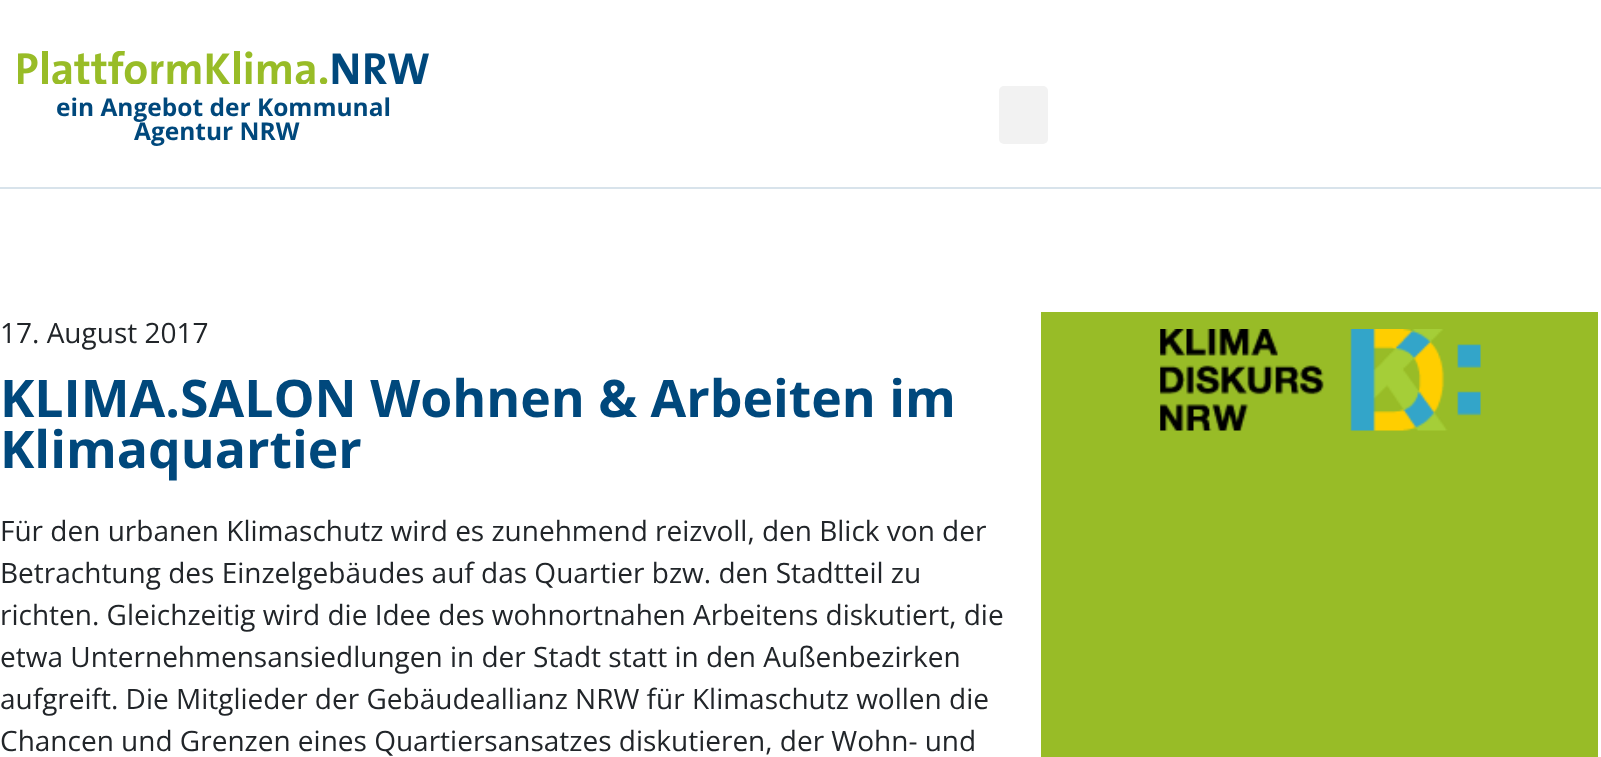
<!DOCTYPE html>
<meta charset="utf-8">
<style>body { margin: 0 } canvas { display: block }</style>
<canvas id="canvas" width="1601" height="757"></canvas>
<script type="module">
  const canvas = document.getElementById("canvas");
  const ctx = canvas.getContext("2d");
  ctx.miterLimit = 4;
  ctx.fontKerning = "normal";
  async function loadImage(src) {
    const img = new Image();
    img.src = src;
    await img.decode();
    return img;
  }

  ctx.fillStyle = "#ffffff";
  ctx.fillRect(0, 0, 1601, 757);
  ctx.fillStyle = "#d8e3eb";
  ctx.fillRect(0, 187, 1601, 2);
  ctx.drawImage(await loadImage("img1.png"), 18, 51, 411, 33);
  ctx.font = "bold 24.5px Open Sans";
  ctx.fillStyle = "#00487c";
  ctx.fillText("ein Angebot der Kommunal", 56, 116);
  ctx.fillText("Agentur NRW", 134, 140);
  ctx.fillStyle = "#f2f2f2";
  ctx.beginPath();
  ctx.roundRect(999, 86, 49, 58, 5);
  ctx.fill();
  ctx.font = "28px Open Sans";
  ctx.fillStyle = "#212529";
  ctx.fillText("17. August 2017", 0, 343);
  ctx.font = "bold 51.75px Open Sans";
  ctx.fillStyle = "#00487c";
  ctx.fillText("KLIMA.SALON Wohnen & Arbeiten im", 0, 417);
  ctx.fillText("Klimaquartier", 0, 468);
  ctx.font = "28px Open Sans";
  ctx.fillStyle = "#212529";
  ctx.fillText("Für den urbanen Klimaschutz wird es zunehmend reizvoll, den Blick von der", 0, 541);
  ctx.fillText("Betrachtung des Einzelgebäudes auf das Quartier bzw. den Stadtteil zu", 0, 583);
  ctx.fillText("richten. Gleichzeitig wird die Idee des wohnortnahen Arbeitens diskutiert, die", 0, 625);
  ctx.fillText("etwa Unternehmensansiedlungen in der Stadt statt in den Außenbezirken", 0, 667);
  ctx.fillText("aufgreift. Die Mitglieder der Gebäudeallianz NRW für Klimaschutz wollen die", 0, 709);
  ctx.fillText("Chancen und Grenzen eines Quartiersansatzes diskutieren, der Wohn- und", 0, 751);
  ctx.fillStyle = "#98bc27";
  ctx.fillRect(1041, 312, 557, 445);
  ctx.drawImage(await loadImage("img2.png"), 1160, 329, 321, 102);
</script>
